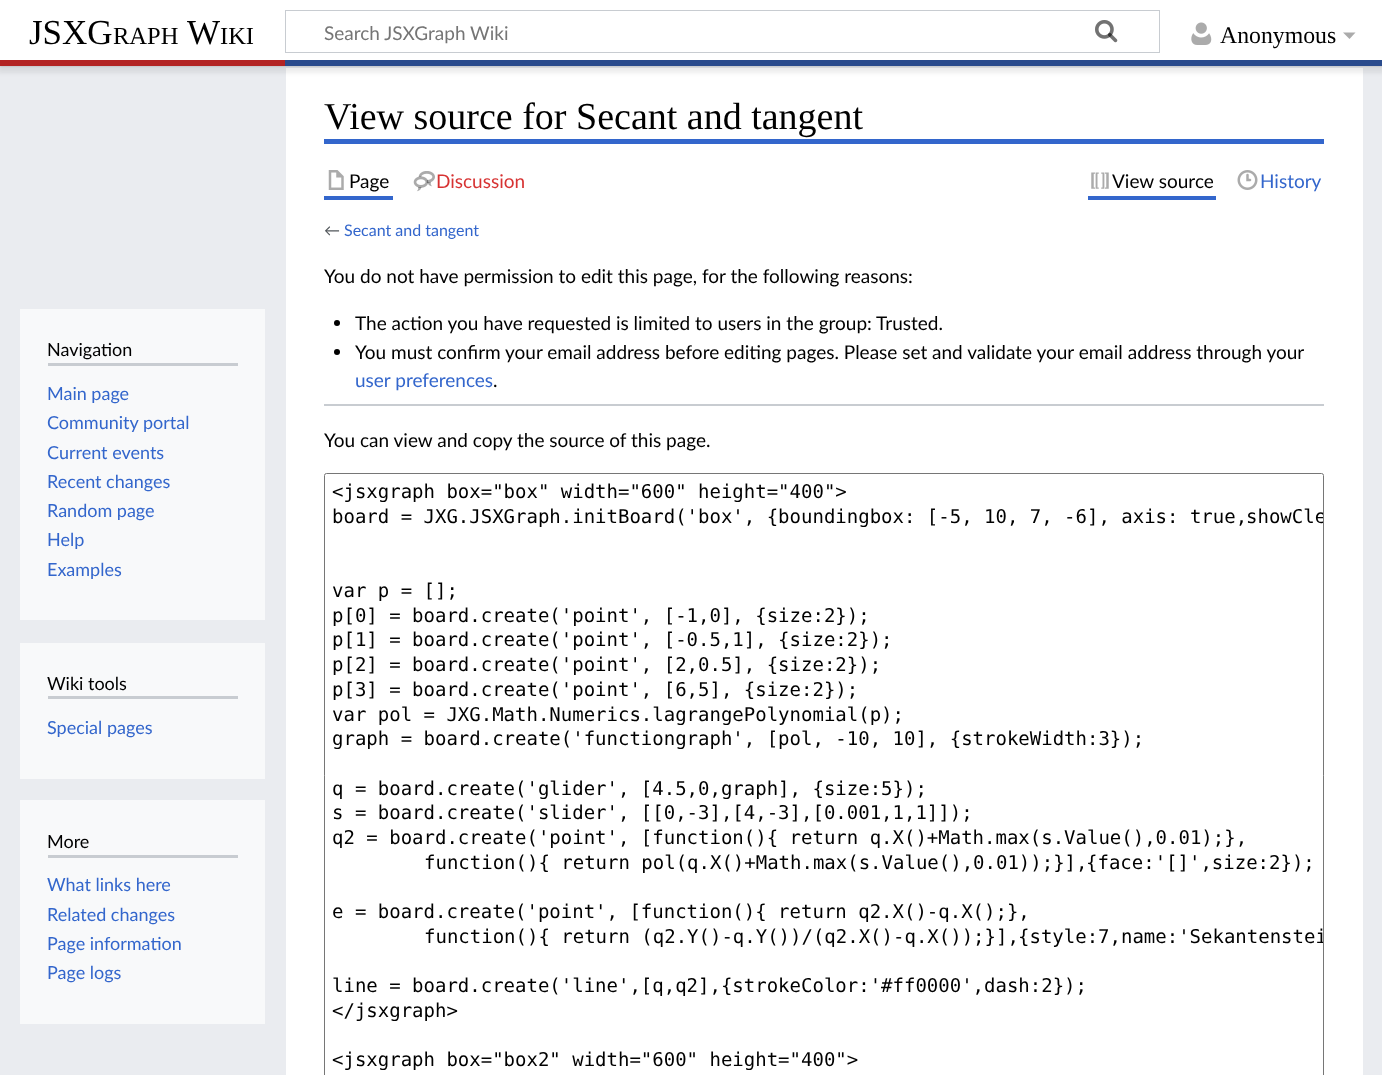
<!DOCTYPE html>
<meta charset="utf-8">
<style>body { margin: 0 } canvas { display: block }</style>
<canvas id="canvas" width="1382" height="1075"></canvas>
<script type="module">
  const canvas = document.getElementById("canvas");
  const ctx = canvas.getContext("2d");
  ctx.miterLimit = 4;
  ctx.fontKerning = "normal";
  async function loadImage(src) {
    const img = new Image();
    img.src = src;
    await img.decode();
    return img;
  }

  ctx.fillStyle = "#eaecf0";
  ctx.fillRect(0, 0, 1382, 1075);
  ctx.fillStyle = "#ffffff";
  ctx.fillRect(286, 68, 1077, 1007);
  ctx.fillStyle = "rgba(0, 0, 0, 0.2)";
  ctx.filter = "blur(1px)";
  ctx.beginPath();
  ctx.rect(0, 60, 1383, 6);
  ctx.fill();
  ctx.filter = "none";
  ctx.fillStyle = "rgba(0, 0, 0, 0.07)";
  ctx.filter = "blur(2px)";
  ctx.beginPath();
  ctx.rect(-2, 61, 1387, 12);
  ctx.fill();
  ctx.filter = "none";
  ctx.fillStyle = "#ffffff";
  ctx.fillRect(0, 0, 1382, 60);
  ctx.font = "35px Liberation Serif";
  ctx.fillStyle = "#000000";
  ctx.fillText("JSXG", 29, 44);
  ctx.font = "24.5px Liberation Serif";
  ctx.fillText("RAPH", 113, 44);
  ctx.font = "35px Liberation Serif";
  ctx.fillText("W", 187, 44);
  ctx.font = "24.5px Liberation Serif";
  ctx.fillText("IKI", 220, 44);
  ctx.strokeStyle = "#c8ccd1";
  ctx.strokeRect(285.5, 10.5, 874, 42);
  ctx.drawImage(await loadImage("img1.png"), 1095, 20, 23, 23);
  ctx.font = "19px Lato";
  ctx.fillStyle = "#757575";
  ctx.fillText("Search JSXGraph Wiki", 324, 40);
  ctx.drawImage(await loadImage("img2.png"), 1095, 20, 23, 23);
  ctx.drawImage(await loadImage("img3.png"), 1191, 22, 21, 23);
  ctx.font = "23.75px Liberation Serif";
  ctx.fillStyle = "#000000";
  ctx.fillText("Anonymous", 1220, 43);
  ctx.fillStyle = "#ababab";
  ctx.beginPath();
  ctx.moveTo(1355.5, 32.5);
  ctx.lineTo(1349.5, 39);
  ctx.lineTo(1343, 32.5);
  ctx.closePath();
  ctx.fill();
  ctx.fillStyle = "#b32424";
  ctx.fillRect(0, 60, 285, 6);
  ctx.fillStyle = "#2a4b8d";
  ctx.fillRect(285, 60, 1097, 6);
  ctx.fillStyle = "#f8f9fa";
  ctx.fillRect(20, 309, 245, 311);
  ctx.fillStyle = "#c8ccd1";
  ctx.fillRect(48, 363, 190, 3);
  ctx.font = "18px Lato";
  ctx.fillStyle = "#000000";
  ctx.fillText("Navigation", 47, 356);
  ctx.fillStyle = "#3366cc";
  ctx.fillText("Main page", 47, 400);
  ctx.fillText("Community portal", 47, 429);
  ctx.fillText("Current events", 47, 459);
  ctx.fillText("Recent changes", 47, 488);
  ctx.fillText("Random page", 47, 517);
  ctx.fillText("Help", 47, 546);
  ctx.fillText("Examples", 47, 576);
  ctx.fillStyle = "#f8f9fa";
  ctx.fillRect(20, 643, 245, 136);
  ctx.fillStyle = "#c8ccd1";
  ctx.fillRect(48, 696, 190, 3);
  ctx.fillStyle = "#000000";
  ctx.fillText("Wiki tools", 47, 690);
  ctx.fillStyle = "#3366cc";
  ctx.fillText("Special pages", 47, 734);
  ctx.fillRect(324, 139, 1000, 5);
  ctx.font = "38px Liberation Serif";
  ctx.fillStyle = "#000000";
  ctx.fillText("View source for Secant and tangent", 324, 129);
  ctx.fillStyle = "#3366cc";
  ctx.fillRect(324, 196, 69, 4);
  ctx.drawImage(await loadImage("img4.png"), 328, 170, 16, 20);
  ctx.font = "19px Lato";
  ctx.fillStyle = "#000000";
  ctx.fillText("Page", 349, 188);
  ctx.drawImage(await loadImage("img5.png"), 413, 171, 22, 21);
  ctx.fillStyle = "#d73333";
  ctx.fillText("Discussion", 436, 188);
  ctx.fillStyle = "#3366cc";
  ctx.fillRect(1088, 196, 128, 4);
  ctx.drawImage(await loadImage("img6.png"), 1091, 172, 18, 17);
  ctx.fillStyle = "#000000";
  ctx.fillText("View source", 1112, 188);
  ctx.drawImage(await loadImage("img7.png"), 1237, 170, 21, 20);
  ctx.fillStyle = "#3366cc";
  ctx.fillText("History", 1260, 188);
  ctx.font = "16px Lato";
  ctx.fillStyle = "#54595d";
  ctx.fillText("←", 324, 236);
  ctx.fillStyle = "#3366cc";
  ctx.fillText("Secant and tangent", 344, 236);
  ctx.font = "19px Lato";
  ctx.fillStyle = "#000000";
  ctx.fillText("You do not have permission to edit this page, for the following reasons:", 324, 283);
  ctx.beginPath();
  ctx.arc(337, 323, 3, 0, Math.PI * 2);
  ctx.fill();
  ctx.fillText("The action you have requested is limited to users in the group: Trusted.", 355, 330);
  ctx.beginPath();
  ctx.arc(337, 352, 3, 0, Math.PI * 2);
  ctx.fill();
  ctx.fillText("You must confirm your email address before editing pages. Please set and validate your email address through your", 355, 359);
  ctx.fillStyle = "#3366cc";
  ctx.fillText("user preferences", 355, 387);
  ctx.fillStyle = "#000000";
  ctx.fillText(".", 493, 387);
  ctx.fillStyle = "#c8ccd1";
  ctx.fillRect(324, 404, 1000, 2);
  ctx.fillStyle = "#000000";
  ctx.fillText("You can view and copy the source of this page.", 324, 447);
  ctx.beginPath();
  ctx.roundRect(324.5, 473.5, 999, 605, 2);
  ctx.strokeStyle = "#767676";
  ctx.stroke();
  ctx.font = "19px DejaVu Sans Mono";
  ctx.fillText("<jsxgraph box=\"box\" width=\"600\" height=\"400\">", 332, 498);
  ctx.fillText("board = JXG.JSXGraph.initBoard('box', {boundingbox: [-5, 10, 7, -6], axis: true,", 332, 523);
  ctx.save();
  ctx.beginPath();
  ctx.rect(325, 474, 998, 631);
  ctx.clip();
  ctx.fillText("showCle", 1246, 523);
  ctx.restore();
  ctx.fillText("var p = [];", 332, 597);
  ctx.fillText("p[0] = board.create('point', [-1,0], {size:2});", 332, 622);
  ctx.fillText("p[1] = board.create('point', [-0.5,1], {size:2});", 332, 646);
  ctx.fillText("p[2] = board.create('point', [2,0.5], {size:2});", 332, 671);
  ctx.fillText("p[3] = board.create('point', [6,5], {size:2});", 332, 696);
  ctx.fillText("var pol = JXG.Math.Numerics.lagrangePolynomial(p);", 332, 721);
  ctx.fillText("graph = board.create('functiongraph', [pol, -10, 10], {strokeWidth:3});", 332, 745);
  ctx.fillText("q = board.create('glider', [4.5,0,graph], {size:5});", 332, 795);
  ctx.fillText("s = board.create('slider', [[0,-3],[4,-3],[0.001,1,1]]);", 332, 819);
  ctx.fillText("q2 = board.create('point', [function(){ return q.X()+Math.max(s.Value(),0.01);},", 332, 844);
  ctx.fillText("function(){ return pol(q.X()+Math.max(s.Value(),0.01));}],", 424, 869);
  ctx.fillText("{face:'[]',size:2});", 1086, 869);
  ctx.fillText("e = board.create('point', [function(){ return q2.X()-q.X();},", 332, 918);
  ctx.fillText("function(){ return (q2.Y()-q.Y())/(q2.X()-q.X());}],", 424, 943);
  ctx.save();
  ctx.beginPath();
  ctx.rect(325, 474, 998, 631);
  ctx.clip();
  ctx.fillText("{style:7,name:'Sekantenstei", 1018, 943);
  ctx.restore();
  ctx.fillText("line = board.create('line',[q,q2],{strokeColor:'#ff0000',dash:2});", 332, 992);
  ctx.fillText("<\/jsxgraph>", 332, 1017);
  ctx.fillText("<jsxgraph box=\"box2\" width=\"600\" height=\"400\">", 332, 1066);
  ctx.fillStyle = "#f8f9fa";
  ctx.fillRect(20, 800, 245, 224);
  ctx.fillStyle = "#c8ccd1";
  ctx.fillRect(48, 855, 190, 3);
  ctx.font = "18px Lato";
  ctx.fillStyle = "#000000";
  ctx.fillText("More", 47, 848);
  ctx.fillStyle = "#3366cc";
  ctx.fillText("What links here", 47, 891);
  ctx.fillText("Related changes", 47, 921);
  ctx.fillText("Page information", 47, 950);
  ctx.fillText("Page logs", 47, 979);
</script>
